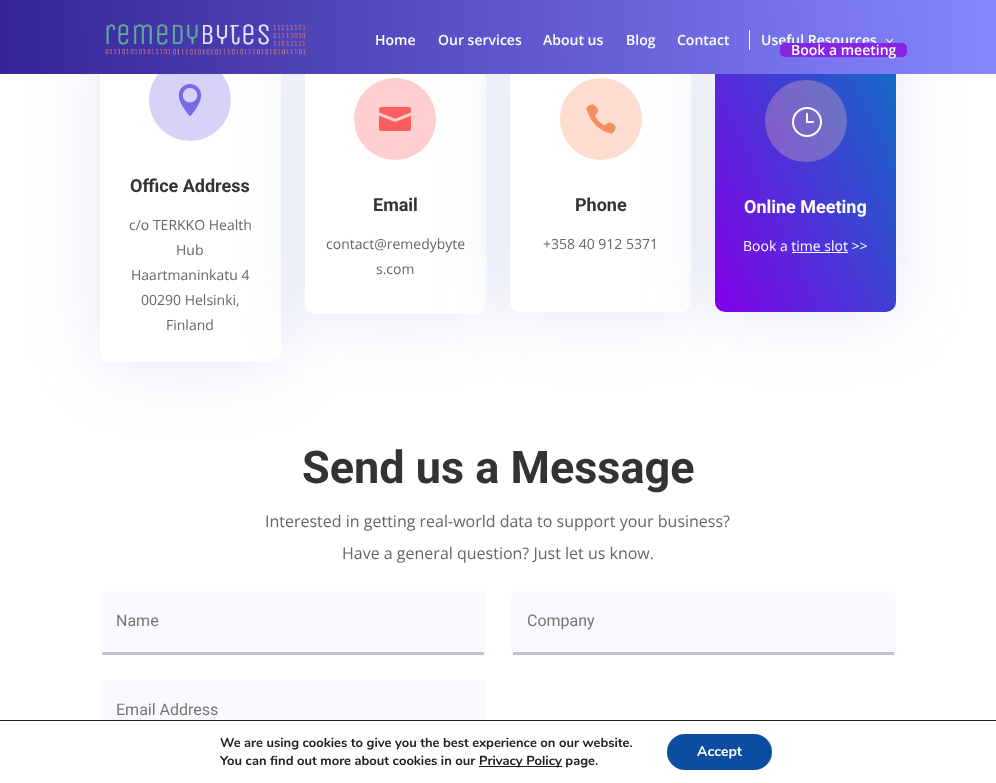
<!DOCTYPE html>
<meta charset="utf-8">
<style>body { margin: 0 } canvas { display: block }</style>
<canvas id="canvas" width="996" height="783"></canvas>
<script type="module">
  const canvas = document.getElementById("canvas");
  const ctx = canvas.getContext("2d");
  ctx.miterLimit = 4;
  ctx.fontKerning = "normal";
  async function loadImage(src) {
    const img = new Image();
    img.src = src;
    await img.decode();
    return img;
  }
  let gradient;

  ctx.fillStyle = "#ffffff";
  ctx.fillRect(0, 0, 996, 783);
  ctx.fillStyle = "rgba(110, 130, 208, 0.18)";
  ctx.filter = "blur(35px)";
  ctx.beginPath();
  ctx.roundRect(100, 31, 181, 333, 10);
  ctx.fill();
  ctx.filter = "none";
  ctx.fillStyle = "#ffffff";
  ctx.beginPath();
  ctx.roundRect(100, 29, 181, 333, 10);
  ctx.fill();
  ctx.fillStyle = "#d7d2f8";
  ctx.beginPath();
  ctx.arc(190, 100, 41, 0, Math.PI * 2);
  ctx.fill();
  ctx.drawImage(await loadImage("img3.png"), 178, 84, 24, 32);
  ctx.fillStyle = "rgba(110, 130, 208, 0.18)";
  ctx.filter = "blur(35px)";
  ctx.beginPath();
  ctx.roundRect(305, 31, 181, 285, 10);
  ctx.fill();
  ctx.filter = "none";
  ctx.fillStyle = "#ffffff";
  ctx.beginPath();
  ctx.roundRect(305, 29, 181, 285, 10);
  ctx.fill();
  ctx.fillStyle = "#fecfce";
  ctx.beginPath();
  ctx.arc(395, 119, 41, 0, Math.PI * 2);
  ctx.fill();
  ctx.drawImage(await loadImage("img4.png"), 379, 107, 32, 24);
  ctx.fillStyle = "rgba(110, 130, 208, 0.18)";
  ctx.filter = "blur(35px)";
  ctx.beginPath();
  ctx.roundRect(510, 31, 181, 283, 10);
  ctx.fill();
  ctx.filter = "none";
  ctx.fillStyle = "#ffffff";
  ctx.beginPath();
  ctx.roundRect(510, 29, 181, 283, 10);
  ctx.fill();
  ctx.fillStyle = "#fdddcf";
  ctx.beginPath();
  ctx.arc(601, 119, 41, 0, Math.PI * 2);
  ctx.fill();
  ctx.drawImage(await loadImage("img5.png"), 586, 104, 30, 30);
  ctx.fillStyle = "rgba(110, 130, 208, 0.18)";
  ctx.filter = "blur(35px)";
  ctx.beginPath();
  ctx.roundRect(715, 33, 181, 281, 10);
  ctx.fill();
  ctx.filter = "none";
  gradient = ctx.createLinearGradient(677, 231, 934, 112);
  gradient.addColorStop(0, "#8300e9");
  gradient.addColorStop(1, "#0c71c3");
  ctx.fillStyle = gradient;
  ctx.beginPath();
  ctx.roundRect(715, 31, 181, 281, 10);
  ctx.fill();
  gradient = ctx.createLinearGradient(-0.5, 46, 996, 28);
  gradient.addColorStop(0, "#352597");
  gradient.addColorStop(1, "#8686ff");
  ctx.fillStyle = gradient;
  ctx.fillRect(0, 0, 996, 74);
  ctx.drawImage(await loadImage("img1.png"), 105, 24, 201, 31);
  ctx.font = "600 14px Open Sans";
  ctx.fillStyle = "#ffffff";
  ctx.fillText("Home", 375, 45);
  ctx.fillText("Our services", 438, 45);
  ctx.fillText("About us", 543, 45);
  ctx.fillText("Blog", 626, 45);
  ctx.fillRect(749, 30, 1, 20);
  ctx.fillText("Contact", 677, 45);
  ctx.fillText("Useful Resources", 761, 45);
  ctx.drawImage(await loadImage("img2.png"), 885, 38, 9, 5);
  ctx.fillStyle = "#8624e1";
  ctx.beginPath();
  ctx.roundRect(780, 43, 127, 14, 5);
  ctx.fill();
  ctx.fillStyle = "#ffffff";
  ctx.fillText("Book a meeting", 791, 55);
  ctx.font = "bold 18px Roboto";
  ctx.fillStyle = "#333333";
  ctx.fillText("Office Address", 130, 192);
  ctx.font = "14px Open Sans";
  ctx.fillStyle = "#666666";
  ctx.fillText("c/o TERKKO Health", 129, 230);
  ctx.fillText("Hub", 176, 255);
  ctx.fillText("Haartmaninkatu 4", 131, 280);
  ctx.fillText("00290 Helsinki,", 141, 305);
  ctx.fillText("Finland", 166, 330);
  ctx.font = "bold 18px Roboto";
  ctx.fillStyle = "#333333";
  ctx.fillText("Email", 373, 211);
  ctx.font = "14px Open Sans";
  ctx.fillStyle = "#666666";
  ctx.fillText("contact@remedybyte", 326, 249);
  ctx.fillText("s.com", 376, 274);
  ctx.font = "bold 18px Roboto";
  ctx.fillStyle = "#333333";
  ctx.fillText("Phone", 575, 211);
  ctx.font = "14px Open Sans";
  ctx.fillStyle = "#666666";
  ctx.fillText("+358 40 912 5371", 543, 249);
  ctx.fillStyle = "rgba(249, 197, 174, 0.3)";
  ctx.beginPath();
  ctx.arc(806, 121, 41, 0, Math.PI * 2);
  ctx.fill();
  ctx.drawImage(await loadImage("img6.png"), 792, 107, 30, 30);
  ctx.font = "bold 18px Roboto";
  ctx.fillStyle = "#ffffff";
  ctx.fillText("Online Meeting", 744, 213);
  ctx.font = "14px Open Sans";
  ctx.fillText("Book a time slot >>", 743, 251);
  ctx.fillRect(792, 252, 56, 1);
  ctx.font = "bold 45px Roboto";
  ctx.fillStyle = "#333333";
  ctx.fillText("Send us a Message", 302, 483);
  ctx.font = "16px Open Sans";
  ctx.fillStyle = "#666666";
  ctx.fillText("Interested in getting real-world data to support your business?", 265, 527);
  ctx.fillText("Have a general question? Just let us know.", 342, 559);
  ctx.fillStyle = "#f9fafd";
  ctx.beginPath();
  ctx.moveTo(104, 591);
  ctx.lineTo(482, 591);
  ctx.bezierCurveTo(484, 591, 486, 593, 486, 595);
  ctx.lineTo(486, 651);
  ctx.bezierCurveTo(486, 652, 484, 652, 482, 652);
  ctx.lineTo(104, 652);
  ctx.bezierCurveTo(102, 652, 100, 652, 100, 651);
  ctx.lineTo(100, 595);
  ctx.bezierCurveTo(100, 593, 102, 591, 104, 591);
  ctx.closePath();
  ctx.fill();
  ctx.fillStyle = "#bec2d8";
  ctx.fillRect(102, 652, 382, 3);
  ctx.font = "16px Roboto";
  ctx.fillStyle = "#757575";
  ctx.fillText("Name", 116, 626);
  ctx.fillStyle = "#f9fafd";
  ctx.beginPath();
  ctx.moveTo(515, 591);
  ctx.lineTo(892, 591);
  ctx.bezierCurveTo(894, 591, 896, 593, 896, 595);
  ctx.lineTo(896, 651);
  ctx.bezierCurveTo(896, 652, 894, 652, 892, 652);
  ctx.lineTo(515, 652);
  ctx.bezierCurveTo(513, 652, 511, 652, 511, 651);
  ctx.lineTo(511, 595);
  ctx.bezierCurveTo(511, 593, 513, 591, 515, 591);
  ctx.closePath();
  ctx.fill();
  ctx.fillStyle = "#bec2d8";
  ctx.fillRect(513, 652, 381, 3);
  ctx.fillStyle = "#757575";
  ctx.fillText("Company", 527, 626);
  ctx.fillStyle = "#f9fafd";
  ctx.beginPath();
  ctx.moveTo(104, 680);
  ctx.lineTo(482, 680);
  ctx.bezierCurveTo(484, 680, 486, 682, 486, 684);
  ctx.lineTo(486, 739);
  ctx.bezierCurveTo(486, 740, 484, 740, 482, 740);
  ctx.lineTo(104, 740);
  ctx.bezierCurveTo(102, 740, 100, 740, 100, 739);
  ctx.lineTo(100, 684);
  ctx.bezierCurveTo(100, 682, 102, 680, 104, 680);
  ctx.closePath();
  ctx.fill();
  ctx.fillStyle = "#757575";
  ctx.fillText("Email Address", 116, 715);
  ctx.fillStyle = "#ffffff";
  ctx.fillRect(100, 721, 386, 19);
  ctx.fillStyle = "#202020";
  ctx.fillRect(0, 720, 996, 1);
  ctx.font = "bold 13px Nunito";
  ctx.fillText("We are using cookies to give you the best experience on our website.", 220, 747);
  ctx.fillText("You can find out more about cookies in our", 220, 765);
  ctx.fillRect(479, 766, 83, 1);
  ctx.fillText("Privacy Policy page.", 479, 765);
  ctx.fillStyle = "#0c4da2";
  ctx.beginPath();
  ctx.roundRect(667, 734, 105, 36, 18);
  ctx.fill();
  ctx.font = "bold 14px Nunito";
  ctx.fillStyle = "#ffffff";
  ctx.fillText("Accept", 697, 756);
</script>
